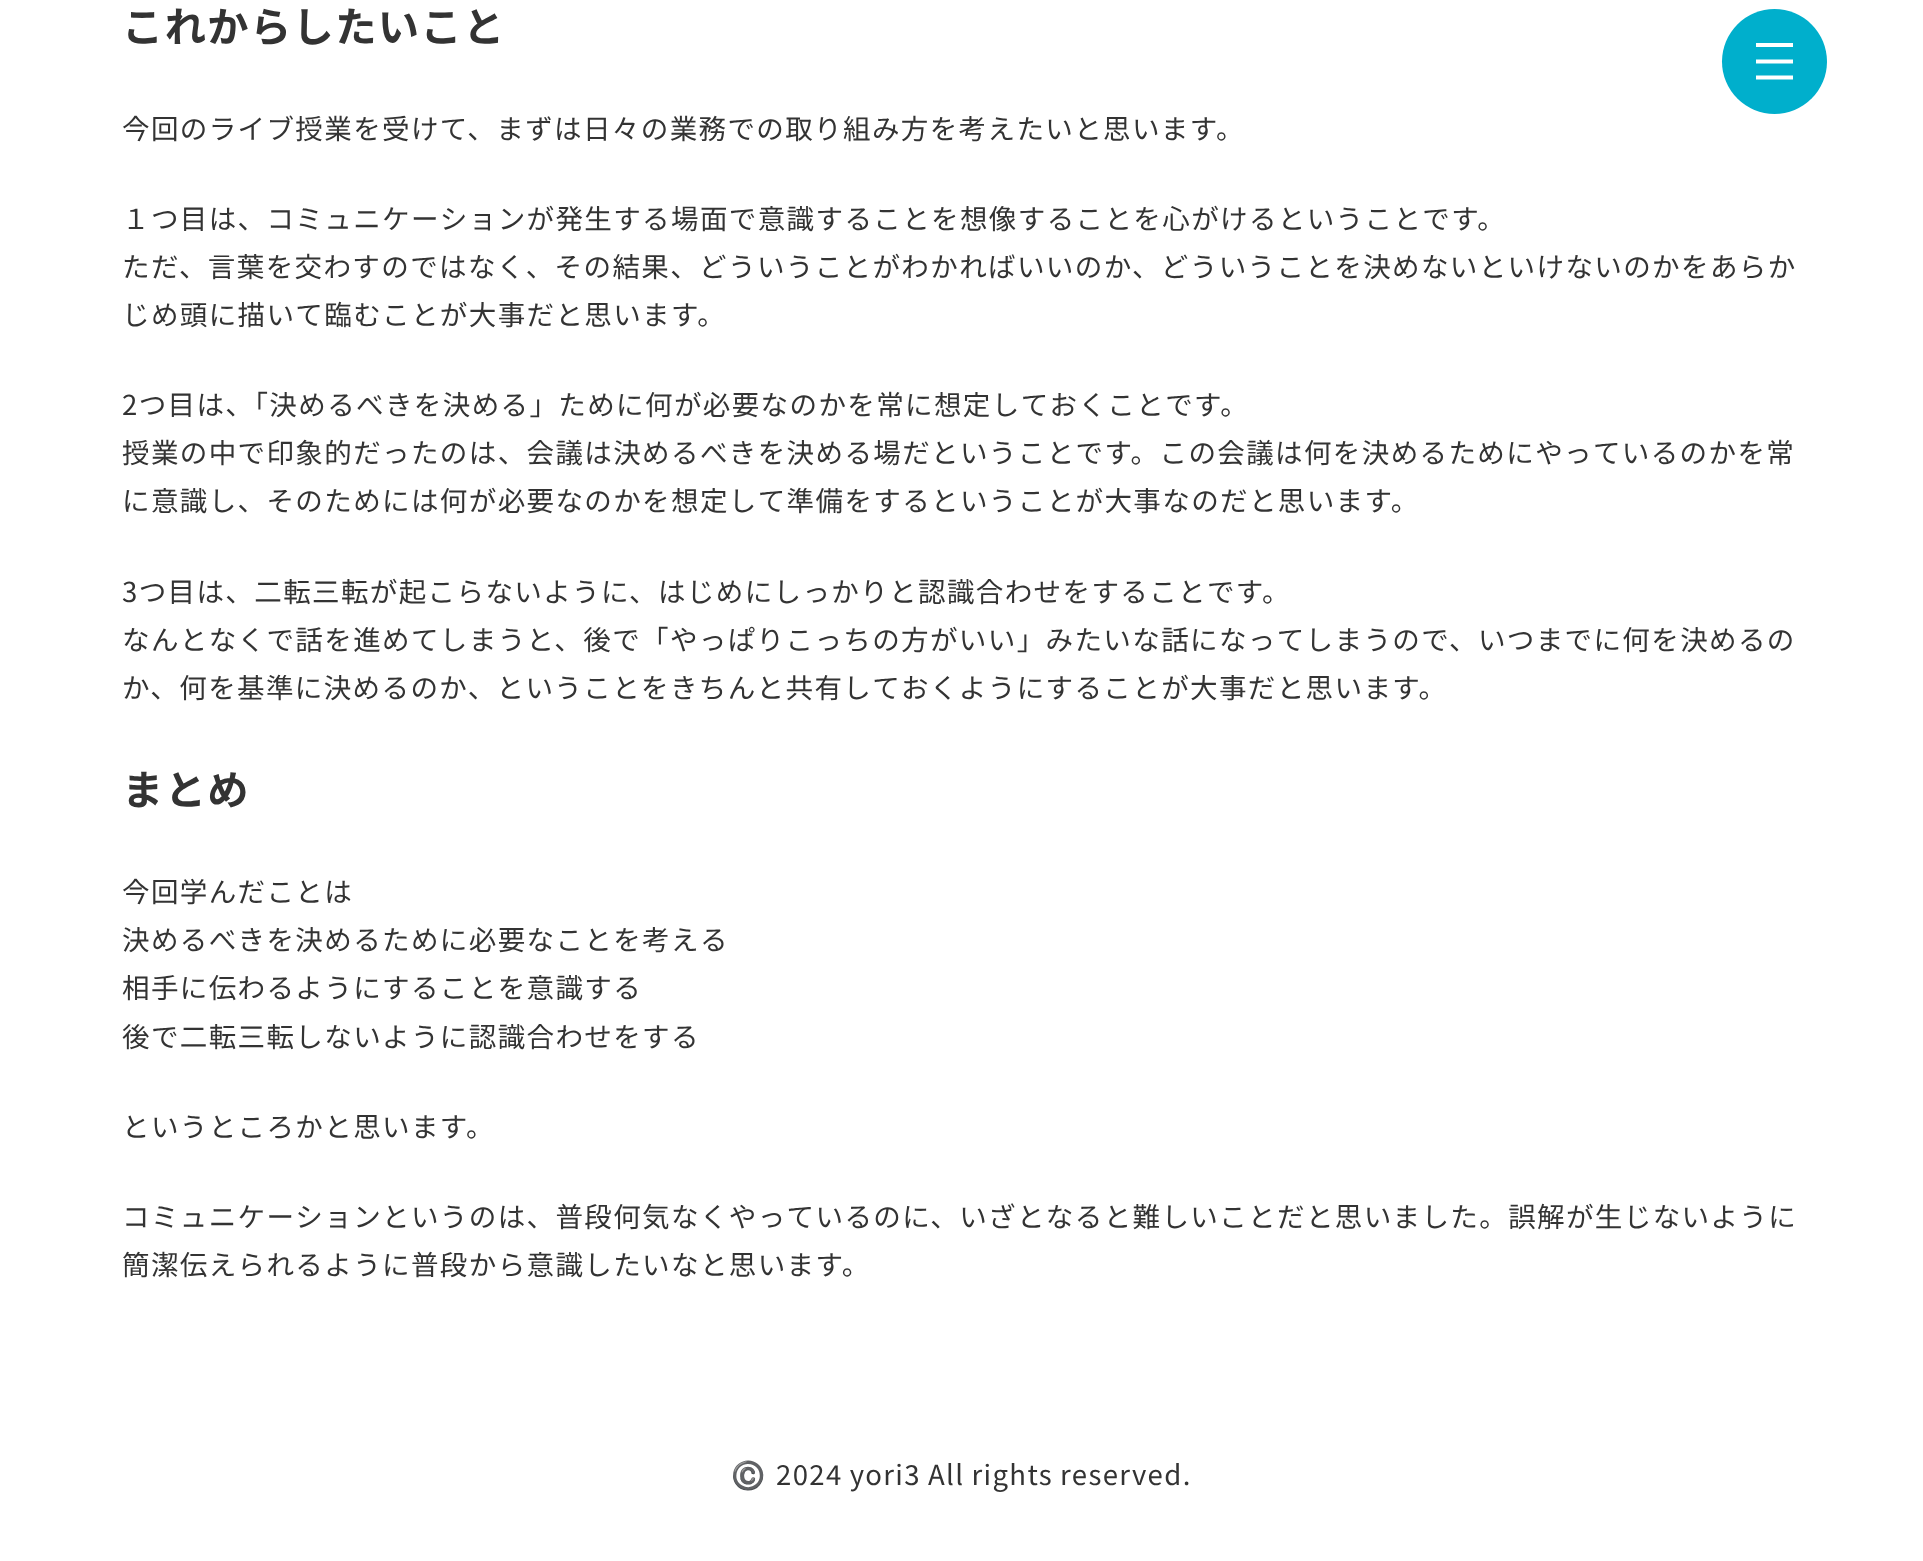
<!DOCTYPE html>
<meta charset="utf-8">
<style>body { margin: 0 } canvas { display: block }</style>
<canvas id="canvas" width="1923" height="1561"></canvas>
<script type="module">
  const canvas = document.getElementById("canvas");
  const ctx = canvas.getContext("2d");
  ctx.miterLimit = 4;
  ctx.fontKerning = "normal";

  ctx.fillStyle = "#ffffff";
  ctx.fillRect(0, 0, 1923, 1561);
  ctx.letterSpacing = "1.38px";
  ctx.font = "bold 41.25px Noto Sans JP";
  ctx.fillStyle = "#333333";
  ctx.fillText("これからしたいこと", 122, 42);
  ctx.font = "27.52px Noto Sans JP";
  ctx.fillText("今回のライブ授業を受けて、まずは日々の業務での取り組み方を考えたいと思います。", 122, 139);
  ctx.fillText("１つ目は、コミュニケーションが発生する場面で意識することを想像することを心がけるということです。", 122, 229);
  ctx.fillText("ただ、言葉を交わすのではなく、その結果、どういうことがわかればいいのか、どういうことを決めないといけないのかをあらか", 122, 277);
  ctx.fillText("じめ頭に描いて臨むことが大事だと思います。", 122, 325);
  ctx.fillText("2つ目は、「決めるべきを決める」ために何が必要なのかを常に想定しておくことです。", 122, 415);
  ctx.fillText("授業の中で印象的だったのは、会議は決めるべきを決める場だということです。この会議は何を決めるためにやっているのかを常", 122, 463);
  ctx.fillText("に意識し、そのためには何が必要なのかを想定して準備をするということが大事なのだと思います。", 122, 511);
  ctx.fillText("3つ目は、二転三転が起こらないように、はじめにしっかりと認識合わせをすることです。", 122, 602);
  ctx.fillText("なんとなくで話を進めてしまうと、後で「やっぱりこっちの方がいい」みたいな話になってしまうので、いつまでに何を決めるの", 122, 650);
  ctx.fillText("か、何を基準に決めるのか、ということをきちんと共有しておくようにすることが大事だと思います。", 122, 698);
  ctx.font = "bold 41.25px Noto Sans JP";
  ctx.fillText("まとめ", 122, 805);
  ctx.font = "27.52px Noto Sans JP";
  ctx.fillText("今回学んだことは", 122, 902);
  ctx.fillText("決めるべきを決めるために必要なことを考える", 122, 950);
  ctx.fillText("相手に伝わるようにすることを意識する", 122, 998);
  ctx.fillText("後で二転三転しないように認識合わせをする", 122, 1047);
  ctx.fillText("というところかと思います。", 122, 1137);
  ctx.fillText("コミュニケーションというのは、普段何気なくやっているのに、いざとなると難しいことだと思いました。誤解が生じないように", 122, 1227);
  ctx.fillText("簡潔伝えられるように普段から意識したいなと思います。", 122, 1275);
  ctx.fillStyle = "#00afcc";
  ctx.beginPath();
  ctx.arc(1774.5, 61.5, 52.5, 0, Math.PI * 2);
  ctx.fill();
  ctx.fillStyle = "#ffffff";
  ctx.beginPath();
  ctx.moveTo(1756, 43);
  ctx.lineTo(1756, 47);
  ctx.lineTo(1793, 47);
  ctx.lineTo(1793, 43);
  ctx.closePath();
  ctx.moveTo(1756, 63.5);
  ctx.lineTo(1793, 63.5);
  ctx.lineTo(1793, 59.5);
  ctx.lineTo(1756, 59.5);
  ctx.closePath();
  ctx.moveTo(1756, 79.5);
  ctx.lineTo(1793, 79.5);
  ctx.lineTo(1793, 75.5);
  ctx.lineTo(1756, 75.5);
  ctx.closePath();
  ctx.fill();
  ctx.font = "27.52px Noto Color Emoji";
  ctx.fillStyle = "#333333";
  ctx.fillText("©️", 731, 1485);
  ctx.wordSpacing = "-0.5px";
  ctx.font = "27.52px Noto Sans JP";
  ctx.fillText("2024 yori3 All rights reserved.", 776, 1485);
</script>
